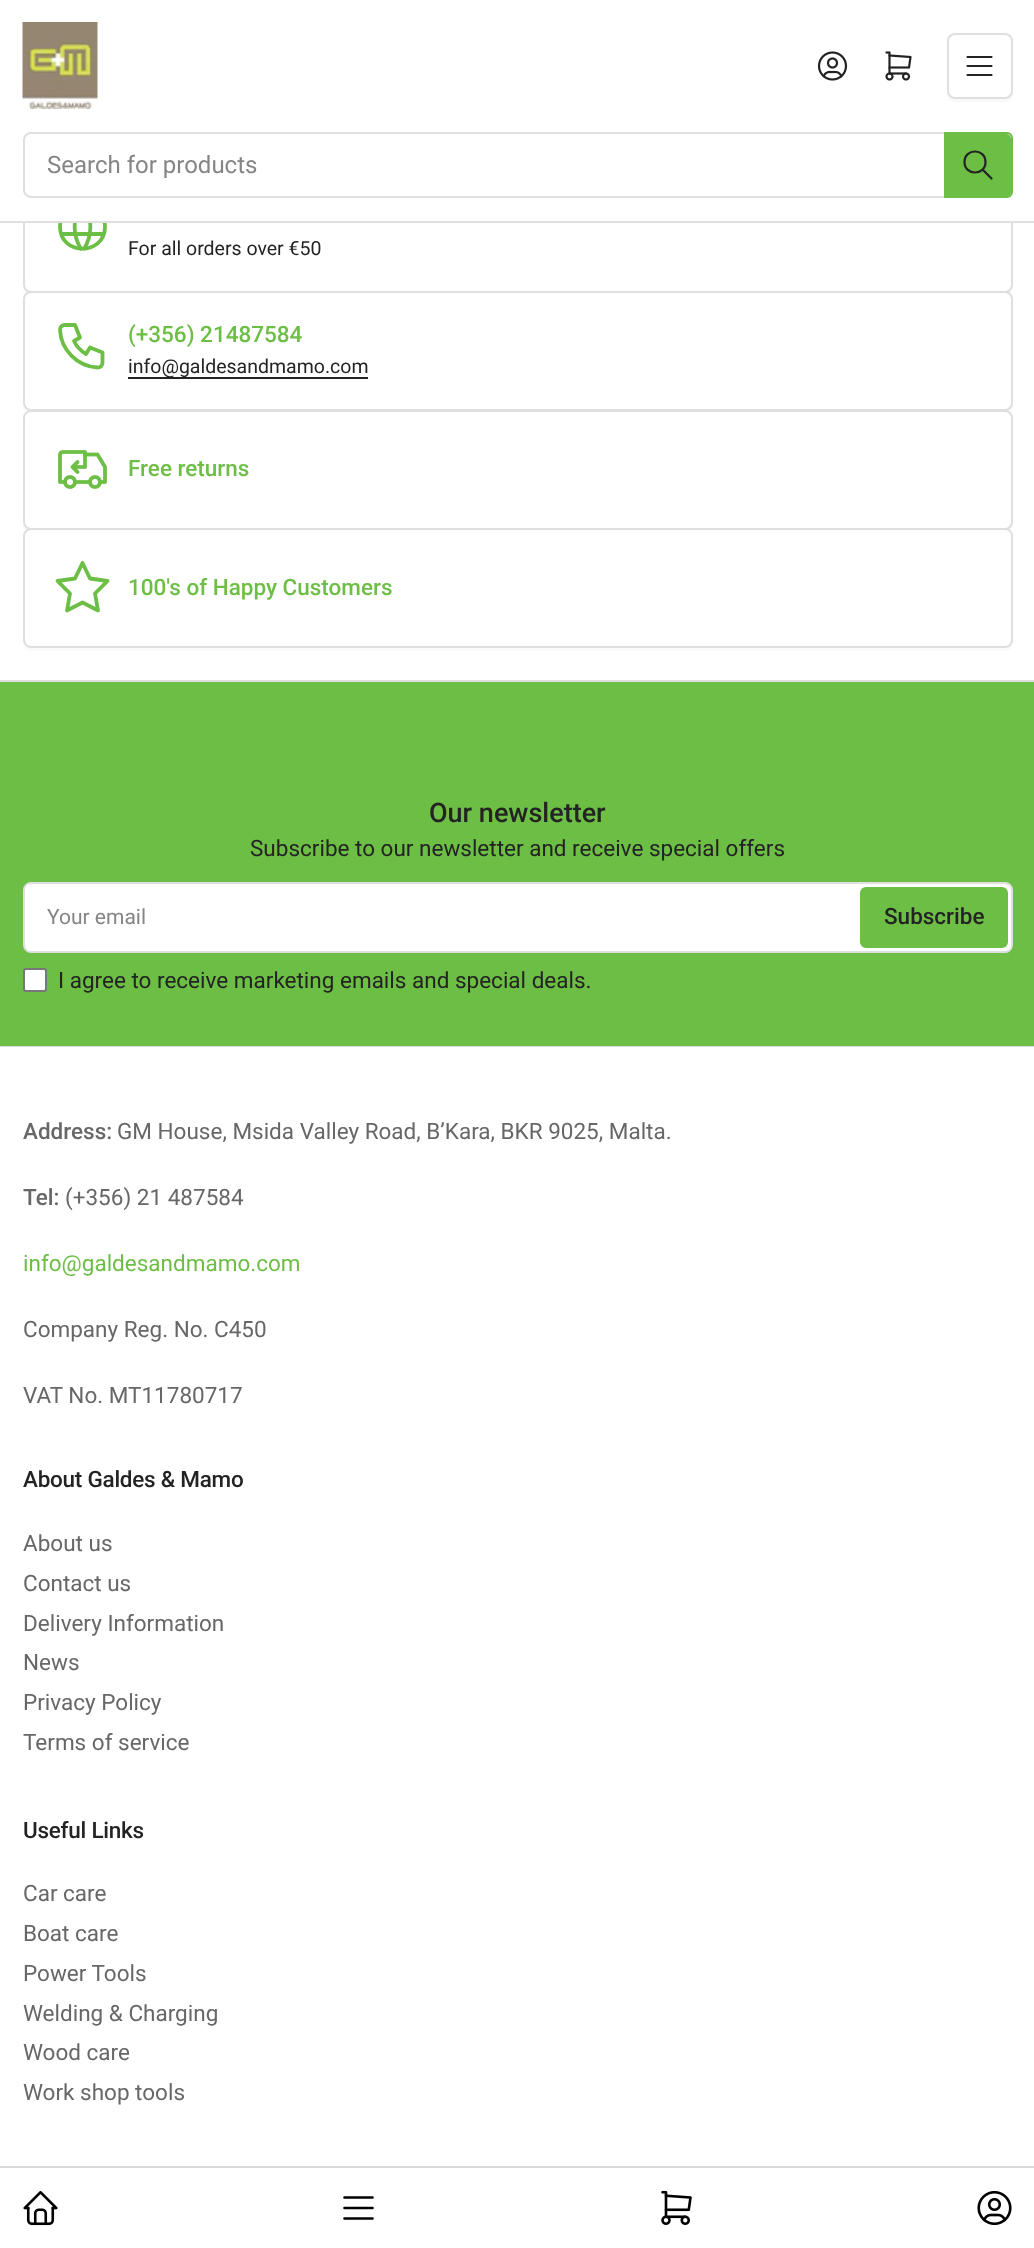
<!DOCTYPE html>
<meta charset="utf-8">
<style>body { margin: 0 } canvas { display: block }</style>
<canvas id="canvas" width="1034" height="2248"></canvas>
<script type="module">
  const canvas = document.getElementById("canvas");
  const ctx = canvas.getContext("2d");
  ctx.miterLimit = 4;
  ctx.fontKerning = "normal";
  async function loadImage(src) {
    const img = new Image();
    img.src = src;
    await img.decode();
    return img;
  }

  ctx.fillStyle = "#ffffff";
  ctx.fillRect(0, 0, 1034, 2248);
  ctx.fillStyle = "#f9f9f9";
  ctx.beginPath();
  ctx.moveTo(23, 288);
  ctx.bezierCurveTo(23, 292, 27, 296, 31, 296);
  ctx.lineTo(1005, 296);
  ctx.bezierCurveTo(1009, 296, 1013, 292, 1013, 288);
  ctx.lineTo(1013, 184);
  ctx.lineTo(1012, 181);
  ctx.lineTo(1012, 285);
  ctx.bezierCurveTo(1012, 289, 1009, 292, 1005, 292);
  ctx.lineTo(30, 292);
  ctx.bezierCurveTo(27, 292, 24, 291, 23, 288);
  ctx.closePath();
  ctx.fill();
  ctx.fillStyle = "#ffffff";
  ctx.beginPath();
  ctx.roundRect(24, 174, 988, 118, 7);
  ctx.fill();
  ctx.strokeStyle = "#dfdfdf";
  ctx.lineWidth = 2;
  ctx.stroke();
  ctx.beginPath();
  ctx.moveTo(60, 226.5);
  ctx.bezierCurveTo(60, 256, 105, 256, 105, 226.5);
  ctx.bezierCurveTo(105, 197, 60, 197, 60, 226.5);
  ctx.moveTo(61.5, 234);
  ctx.lineTo(103.5, 234);
  ctx.moveTo(81, 204);
  ctx.bezierCurveTo(72.5, 218, 72.5, 235, 81, 249);
  ctx.moveTo(84, 204);
  ctx.bezierCurveTo(92.5, 218, 92.5, 235, 84, 249);
  ctx.strokeStyle = "#6dbe45";
  ctx.lineWidth = 3.8;
  ctx.lineCap = "round";
  ctx.lineJoin = "round";
  ctx.stroke();
  ctx.fillStyle = "#dfdfdf";
  ctx.fillRect(0, 221, 1034, 2);
  ctx.fillStyle = "#ffffff";
  ctx.fillRect(23, 173, 990, 48);
  ctx.drawImage(await loadImage("img1.png"), 22, 22, 76, 87);
  ctx.drawImage(await loadImage("img2.png"), 817, 51, 31, 30);
  ctx.drawImage(await loadImage("img3.png"), 885, 51, 27, 30);
  ctx.fillStyle = "#f9f9f9";
  ctx.beginPath();
  ctx.moveTo(947, 94);
  ctx.bezierCurveTo(947, 99, 951, 102, 955, 102);
  ctx.lineTo(1005, 102);
  ctx.bezierCurveTo(1009, 102, 1013, 98, 1013, 94);
  ctx.lineTo(1013, 44);
  ctx.lineTo(1012, 41);
  ctx.lineTo(1012, 92);
  ctx.bezierCurveTo(1012, 96, 1009, 99, 1005, 99);
  ctx.lineTo(954, 99);
  ctx.bezierCurveTo(951, 99, 948, 97, 947, 94);
  ctx.closePath();
  ctx.fill();
  ctx.beginPath();
  ctx.roundRect(948, 34, 64, 64, 7);
  ctx.strokeStyle = "#dfdfdf";
  ctx.lineWidth = 2;
  ctx.lineJoin = "miter";
  ctx.stroke();
  ctx.beginPath();
  ctx.moveTo(967.5, 57);
  ctx.lineTo(991.5, 57);
  ctx.moveTo(967.5, 66);
  ctx.lineTo(991.5, 66);
  ctx.moveTo(967.5, 75);
  ctx.lineTo(991.5, 75);
  ctx.strokeStyle = "#232323";
  ctx.lineWidth = 2.2;
  ctx.lineJoin = "round";
  ctx.stroke();
  ctx.beginPath();
  ctx.roundRect(24, 133, 988, 64, 7);
  ctx.strokeStyle = "#dfdfdf";
  ctx.lineWidth = 2;
  ctx.lineJoin = "miter";
  ctx.stroke();
  ctx.font = "24px Roboto";
  ctx.fillStyle = "#858585";
  ctx.fillText("Search for products", 47, 173);
  ctx.beginPath();
  ctx.roundRect(945, 133, 67, 64, [0, 5, 5, 0]);
  ctx.strokeStyle = "#6dbe45";
  ctx.stroke();
  ctx.fillStyle = "#6dbe45";
  ctx.beginPath();
  ctx.roundRect(945, 134, 66, 63, [0, 5, 5, 0]);
  ctx.fill();
  ctx.beginPath();
  ctx.moveTo(964.5, 162);
  ctx.bezierCurveTo(964.5, 176, 985.5, 176, 985.5, 162);
  ctx.bezierCurveTo(985.5, 148, 964.5, 148, 964.5, 162);
  ctx.moveTo(991.5, 178.5);
  ctx.lineTo(982.5, 169.5);
  ctx.strokeStyle = "#232323";
  ctx.lineWidth = 2.2;
  ctx.lineJoin = "round";
  ctx.stroke();
  ctx.font = "19.5px Roboto";
  ctx.fillStyle = "#232323";
  ctx.fillText("For all orders over €50", 128, 255);
  ctx.fillStyle = "#f9f9f9";
  ctx.beginPath();
  ctx.moveTo(23, 406);
  ctx.bezierCurveTo(23, 411, 27, 414, 31, 414);
  ctx.lineTo(1005, 414);
  ctx.bezierCurveTo(1009, 414, 1013, 410, 1013, 406);
  ctx.lineTo(1013, 302);
  ctx.lineTo(1012, 299);
  ctx.lineTo(1012, 404);
  ctx.bezierCurveTo(1012, 408, 1009, 411, 1005, 411);
  ctx.lineTo(30, 411);
  ctx.bezierCurveTo(27, 411, 24, 409, 23, 406);
  ctx.closePath();
  ctx.fill();
  ctx.fillStyle = "#ffffff";
  ctx.beginPath();
  ctx.roundRect(24, 292, 988, 118, 7);
  ctx.fill();
  ctx.strokeStyle = "#dfdfdf";
  ctx.lineWidth = 2;
  ctx.lineJoin = "miter";
  ctx.stroke();
  ctx.beginPath();
  ctx.moveTo(65, 325);
  ctx.lineTo(75, 325);
  ctx.lineTo(80, 337.5);
  ctx.lineTo(74, 341);
  ctx.bezierCurveTo(76.5, 346.5, 81, 351, 86, 354);
  ctx.lineTo(90, 347.5);
  ctx.lineTo(102.5, 352.5);
  ctx.lineTo(102.5, 362.5);
  ctx.bezierCurveTo(102.5, 365.5, 100.5, 367.5, 97.5, 367.5);
  ctx.bezierCurveTo(77.5, 366.5, 61, 350, 60, 330);
  ctx.bezierCurveTo(60, 327, 62, 325, 65, 325);
  ctx.strokeStyle = "#6dbe45";
  ctx.lineWidth = 3.8;
  ctx.lineJoin = "round";
  ctx.stroke();
  ctx.font = "500 22.5px Roboto";
  ctx.fillStyle = "#6dbe45";
  ctx.fillText("(+356) 21487584", 128, 342);
  ctx.fillStyle = "#232323";
  ctx.fillRect(128, 377, 240, 2);
  ctx.font = "19.5px Roboto";
  ctx.fillText("info@galdesandmamo.com", 128, 373);
  ctx.fillStyle = "#f9f9f9";
  ctx.beginPath();
  ctx.moveTo(23, 525);
  ctx.bezierCurveTo(23, 529, 27, 533, 31, 533);
  ctx.lineTo(1005, 533);
  ctx.bezierCurveTo(1009, 533, 1013, 529, 1013, 525);
  ctx.lineTo(1013, 421);
  ctx.lineTo(1012, 418);
  ctx.lineTo(1012, 522);
  ctx.bezierCurveTo(1012, 526, 1009, 530, 1005, 530);
  ctx.lineTo(30, 530);
  ctx.bezierCurveTo(27, 530, 24, 528, 23, 525);
  ctx.closePath();
  ctx.fill();
  ctx.fillStyle = "#ffffff";
  ctx.beginPath();
  ctx.roundRect(24, 411, 988, 118, 7);
  ctx.fill();
  ctx.strokeStyle = "#dfdfdf";
  ctx.lineWidth = 2;
  ctx.lineJoin = "miter";
  ctx.stroke();
  ctx.drawImage(await loadImage("img4.png"), 58, 450, 49, 39);
  ctx.font = "500 22.5px Roboto";
  ctx.fillStyle = "#6dbe45";
  ctx.fillText("Free returns", 128, 476);
  ctx.fillStyle = "#f9f9f9";
  ctx.beginPath();
  ctx.moveTo(23, 643);
  ctx.bezierCurveTo(23, 648, 27, 651, 31, 651);
  ctx.lineTo(1005, 651);
  ctx.bezierCurveTo(1009, 651, 1013, 647, 1013, 643);
  ctx.lineTo(1013, 539);
  ctx.lineTo(1012, 536);
  ctx.lineTo(1012, 640);
  ctx.bezierCurveTo(1012, 645, 1009, 648, 1005, 648);
  ctx.lineTo(30, 648);
  ctx.bezierCurveTo(27, 648, 24, 646, 23, 643);
  ctx.closePath();
  ctx.fill();
  ctx.fillStyle = "#ffffff";
  ctx.beginPath();
  ctx.roundRect(24, 529, 988, 118, 7);
  ctx.fill();
  ctx.stroke();
  ctx.beginPath();
  ctx.moveTo(82.5, 602.5);
  ctx.lineTo(67, 610.5);
  ctx.lineTo(70, 593.5);
  ctx.lineTo(57.5, 581);
  ctx.lineTo(75, 578.5);
  ctx.lineTo(82.5, 563);
  ctx.lineTo(90, 578.5);
  ctx.lineTo(107.5, 581);
  ctx.lineTo(95, 593.5);
  ctx.lineTo(98, 610.5);
  ctx.closePath();
  ctx.strokeStyle = "#6dbe45";
  ctx.lineWidth = 3.8;
  ctx.lineJoin = "round";
  ctx.stroke();
  ctx.fillStyle = "#6dbe45";
  ctx.fillText("100's of Happy Customers", 128, 595);
  ctx.fillRect(0, 682, 1034, 364);
  ctx.fillStyle = "#dfdfdf";
  ctx.fillRect(0, 680, 1034, 2);
  ctx.fillRect(0, 1046, 1034, 1);
  ctx.font = "500 27px Roboto";
  ctx.fillStyle = "#232323";
  ctx.fillText("Our newsletter", 429, 822);
  ctx.font = "22.5px Roboto";
  ctx.fillText("Subscribe to our newsletter and receive special offers", 250, 856);
  ctx.fillStyle = "#ffffff";
  ctx.beginPath();
  ctx.roundRect(24, 883, 988, 69, 7);
  ctx.fill();
  ctx.strokeStyle = "#dfdfdf";
  ctx.lineWidth = 2;
  ctx.lineJoin = "miter";
  ctx.stroke();
  ctx.font = "21px Roboto";
  ctx.fillStyle = "#858585";
  ctx.fillText("Your email", 47, 924);
  ctx.beginPath();
  ctx.roundRect(861, 888, 146, 59, 5);
  ctx.strokeStyle = "#6dbe45";
  ctx.stroke();
  ctx.fillStyle = "#6dbe45";
  ctx.beginPath();
  ctx.roundRect(861, 888, 146, 59, 5);
  ctx.fill();
  ctx.font = "500 22.5px Roboto";
  ctx.fillStyle = "#232323";
  ctx.fillText("Subscribe", 884, 924);
  ctx.fillStyle = "#ffffff";
  ctx.beginPath();
  ctx.roundRect(24, 969, 22, 22, 2);
  ctx.fill();
  ctx.strokeStyle = "#767676";
  ctx.stroke();
  ctx.font = "22.5px Roboto";
  ctx.fillStyle = "#232323";
  ctx.fillText("I agree to receive marketing emails and special deals.", 58, 988);
  ctx.font = "500 22.5px Roboto";
  ctx.fillStyle = "#676767";
  ctx.fillText("Address:", 23, 1139);
  ctx.font = "22.5px Roboto";
  ctx.fillText("GM House, Msida Valley Road, B’Kara, BKR 9025, Malta.", 117, 1139);
  ctx.font = "500 22.5px Roboto";
  ctx.fillText("Tel:", 23, 1205);
  ctx.font = "22.5px Roboto";
  ctx.fillText("(+356) 21 487584", 65, 1205);
  ctx.fillStyle = "#6dbe45";
  ctx.fillText("info@galdesandmamo.com", 23, 1271);
  ctx.fillStyle = "#676767";
  ctx.fillText("Company Reg. No. C450", 23, 1337);
  ctx.fillText("VAT No. MT11780717", 23, 1403);
  ctx.letterSpacing = "-0.25px";
  ctx.font = "500 22.5px Roboto";
  ctx.fillStyle = "#232323";
  ctx.fillText("About Galdes & Mamo", 23, 1487);
  ctx.letterSpacing = "0px";
  ctx.font = "22.5px Roboto";
  ctx.fillStyle = "#676767";
  ctx.fillText("About us", 23, 1551);
  ctx.fillText("Contact us", 23, 1591);
  ctx.fillText("Delivery Information", 23, 1631);
  ctx.fillText("News", 23, 1670);
  ctx.fillText("Privacy Policy", 23, 1710);
  ctx.fillText("Terms of service", 23, 1750);
  ctx.letterSpacing = "-0.25px";
  ctx.font = "500 22.5px Roboto";
  ctx.fillStyle = "#232323";
  ctx.fillText("Useful Links", 23, 1838);
  ctx.letterSpacing = "0px";
  ctx.font = "22.5px Roboto";
  ctx.fillStyle = "#676767";
  ctx.fillText("Car care", 23, 1901);
  ctx.fillText("Boat care", 23, 1941);
  ctx.fillText("Power Tools", 23, 1981);
  ctx.fillText("Welding & Charging", 23, 2021);
  ctx.fillText("Wood care", 23, 2060);
  ctx.fillText("Work shop tools", 23, 2100);
  ctx.fillStyle = "#dadada";
  ctx.fillRect(0, 2166, 1034, 2);
  ctx.drawImage(await loadImage("img5.png"), 23, 2191, 35, 35);
  ctx.beginPath();
  ctx.moveTo(344.5, 2197.5);
  ctx.lineTo(372.5, 2197.5);
  ctx.moveTo(344.5, 2208);
  ctx.lineTo(372.5, 2208);
  ctx.moveTo(344.5, 2218.5);
  ctx.lineTo(372.5, 2218.5);
  ctx.strokeStyle = "#000000";
  ctx.lineWidth = 2.6;
  ctx.lineJoin = "round";
  ctx.stroke();
  ctx.drawImage(await loadImage("img6.png"), 661, 2190, 31, 35);
  ctx.drawImage(await loadImage("img7.png"), 977, 2190, 35, 36);
</script>
